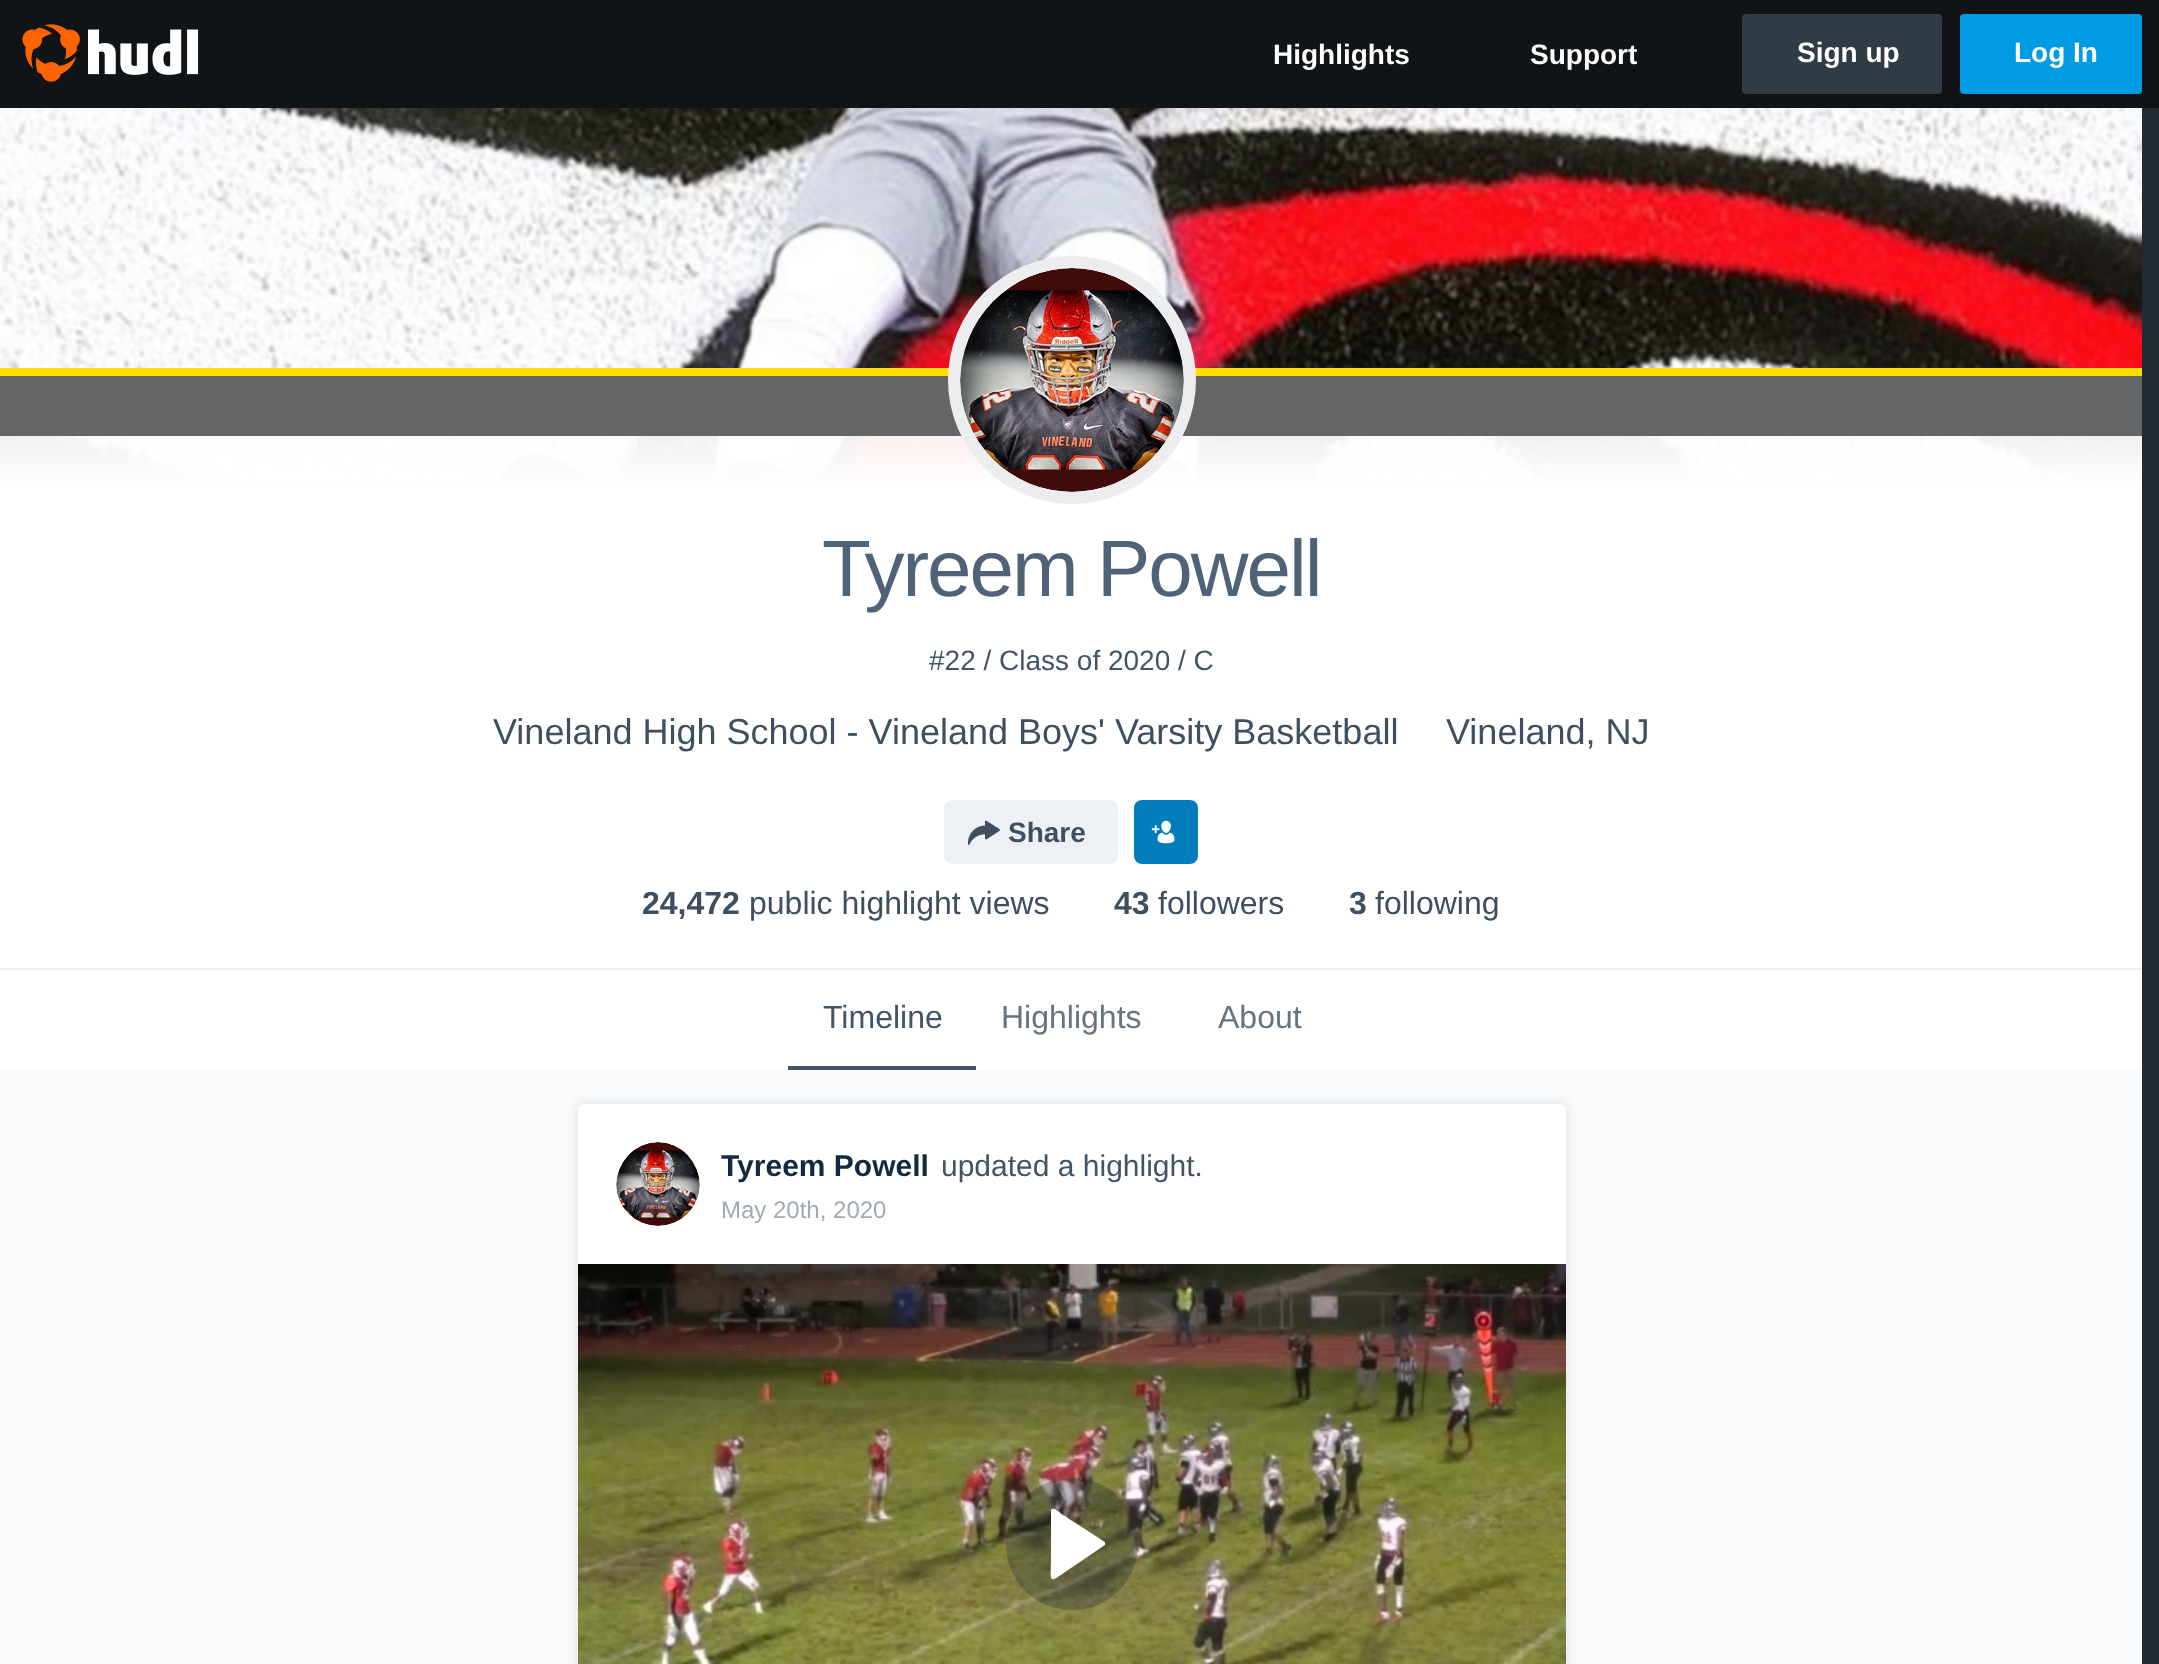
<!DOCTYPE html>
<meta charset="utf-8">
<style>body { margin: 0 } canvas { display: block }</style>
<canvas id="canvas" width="2159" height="1664"></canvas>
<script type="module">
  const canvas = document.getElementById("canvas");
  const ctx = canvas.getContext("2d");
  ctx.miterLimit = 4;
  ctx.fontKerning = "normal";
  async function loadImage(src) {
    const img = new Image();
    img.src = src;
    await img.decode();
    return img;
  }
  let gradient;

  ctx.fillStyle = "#232a31";
  ctx.fillRect(0, 0, 2159, 1664);
  ctx.fillStyle = "#101417";
  ctx.fillRect(0, 0, 2159, 108);
  ctx.drawImage(await loadImage("img1.png"), 22, 24, 177, 58);
  ctx.font = "bold 28px Liberation Sans";
  ctx.fillStyle = "#ffffff";
  ctx.fillText("Highlights", 1273, 64);
  ctx.fillText("Support", 1530, 64);
  ctx.fillStyle = "#313b45";
  ctx.beginPath();
  ctx.roundRect(1745, 17, 194, 74, 1);
  ctx.fill();
  ctx.strokeStyle = "#313b45";
  ctx.lineWidth = 6;
  ctx.stroke();
  ctx.fillStyle = "#ffffff";
  ctx.fillText("Sign up", 1797, 62);
  ctx.fillStyle = "#009ce3";
  ctx.beginPath();
  ctx.roundRect(1963, 17, 176, 74, 1);
  ctx.fill();
  ctx.strokeStyle = "#009ce3";
  ctx.stroke();
  ctx.fillStyle = "#ffffff";
  ctx.fillText("Log In", 2014, 62);
  ctx.drawImage(await loadImage("img2.png"), 0, 108, 2142, 375);
  gradient = ctx.createLinearGradient(1071, 368, 1071, 968);
  gradient.addColorStop(0, "rgba(255, 255, 255, 0.85)");
  gradient.addColorStop(0.2, "#ffffff");
  ctx.fillStyle = gradient;
  ctx.fillRect(0, 436, 2142, 532);
  ctx.fillStyle = "#edf0f2";
  ctx.fillRect(0, 968, 2142, 2);
  ctx.fillStyle = "#ffdd00";
  ctx.fillRect(0, 368, 2142, 8);
  ctx.fillStyle = "#646566";
  ctx.fillRect(0, 376, 2142, 60);
  ctx.fillStyle = "#ffffff";
  ctx.beginPath();
  ctx.arc(1072, 380, 124, 0, Math.PI * 2);
  ctx.fill();
  ctx.beginPath();
  ctx.arc(1072, 380, 118, 0, Math.PI * 2);
  ctx.strokeStyle = "rgba(69, 82, 94, 0.1)";
  ctx.lineWidth = 12;
  ctx.stroke();
  ctx.drawImage(await loadImage("img3.png"), 960, 268, 224, 224);
  ctx.letterSpacing = "-2px";
  ctx.font = "80px Liberation Sans";
  ctx.fillStyle = "#506277";
  ctx.fillText("Tyreem Powell", 822, 596);
  ctx.letterSpacing = "0px";
  ctx.font = "28px Liberation Sans";
  ctx.fillStyle = "#425465";
  ctx.fillText("#22 / Class of 2020 / C", 929, 670);
  ctx.font = "36px Liberation Sans";
  ctx.fillStyle = "#3f4f5f";
  ctx.fillText("Vineland High School - Vineland Boys' Varsity Basketball", 493, 744);
  ctx.fillText("Vineland, NJ", 1446, 744);
  ctx.fillStyle = "#edf1f5";
  ctx.beginPath();
  ctx.roundRect(944, 800, 174, 64, 8);
  ctx.fill();
  ctx.drawImage(await loadImage("img4.png"), 968, 820, 32, 25);
  ctx.font = "bold 28px Liberation Sans";
  ctx.fillStyle = "#3f4f5f";
  ctx.fillText("Share", 1008, 842);
  ctx.fillStyle = "#027dbb";
  ctx.beginPath();
  ctx.roundRect(1134, 800, 64, 64, 8);
  ctx.fill();
  ctx.drawImage(await loadImage("img5.png"), 1151, 820, 24, 24);
  ctx.font = "bold 32px Liberation Sans";
  ctx.fillStyle = "#3f4f5f";
  ctx.fillText("24,472", 642, 914);
  ctx.font = "32px Liberation Sans";
  ctx.fillText("public highlight views", 749, 914);
  ctx.font = "bold 32px Liberation Sans";
  ctx.fillText("43", 1114, 914);
  ctx.font = "32px Liberation Sans";
  ctx.fillText("followers", 1158, 914);
  ctx.font = "bold 32px Liberation Sans";
  ctx.fillText("3", 1349, 914);
  ctx.font = "32px Liberation Sans";
  ctx.fillText("following", 1375, 914);
  ctx.fillStyle = "#ffffff";
  ctx.fillRect(0, 970, 2142, 100);
  ctx.fillStyle = "#425465";
  ctx.fillRect(788, 1066, 188, 4);
  ctx.fillText("Timeline", 823, 1028);
  ctx.fillStyle = "#667482";
  ctx.fillText("Highlights", 1001, 1028);
  ctx.fillText("About", 1218, 1028);
  ctx.fillStyle = "#f9fafb";
  ctx.fillRect(0, 1070, 2142, 594);
  ctx.fillStyle = "rgba(0, 0, 0, 0.1)";
  ctx.filter = "blur(4px)";
  ctx.beginPath();
  ctx.roundRect(576, 1102, 992, 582, 8);
  ctx.fill();
  ctx.filter = "none";
  ctx.fillStyle = "#ffffff";
  ctx.beginPath();
  ctx.moveTo(584, 1102);
  ctx.lineTo(1560, 1102);
  ctx.bezierCurveTo(1564.5, 1102, 1568, 1105.5, 1568, 1110);
  ctx.lineTo(1568, 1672);
  ctx.lineTo(576, 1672);
  ctx.lineTo(576, 1110);
  ctx.bezierCurveTo(576, 1105.5, 579.5, 1102, 584, 1102);
  ctx.closePath();
  ctx.fill();
  ctx.beginPath();
  ctx.roundRect(577, 1103, 990, 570, 7);
  ctx.strokeStyle = "#edf0f2";
  ctx.lineWidth = 2;
  ctx.stroke();
  ctx.drawImage(await loadImage("img6.png"), 616, 1142, 84, 84);
  ctx.font = "bold 30px Liberation Sans";
  ctx.fillStyle = "#13293f";
  ctx.fillText("Tyreem Powell", 721, 1176);
  ctx.font = "30px Liberation Sans";
  ctx.fillStyle = "#425465";
  ctx.fillText("updated a highlight.", 941, 1176);
  ctx.font = "24px Liberation Sans";
  ctx.fillStyle = "#a1a9b2";
  ctx.fillText("May 20th, 2020", 721, 1218);
  ctx.drawImage(await loadImage("img7.png"), 578, 1264, 988, 400);
  ctx.fillStyle = "rgba(35, 42, 49, 0.3)";
  ctx.beginPath();
  ctx.arc(1072, 1544, 66, 0, Math.PI * 2);
  ctx.fill();
  ctx.fillStyle = "#ffffff";
  ctx.beginPath();
  ctx.moveTo(1051, 1510);
  ctx.lineTo(1051, 1555);
  ctx.bezierCurveTo(1051, 1586, 1047, 1584, 1071, 1568);
  ctx.lineTo(1105, 1545);
  ctx.bezierCurveTo(1105, 1544, 1105, 1543, 1105, 1542);
  ctx.lineTo(1063, 1515);
  ctx.bezierCurveTo(1059, 1512, 1054, 1506, 1051, 1510);
  ctx.closePath();
  ctx.fill("evenodd");
</script>
